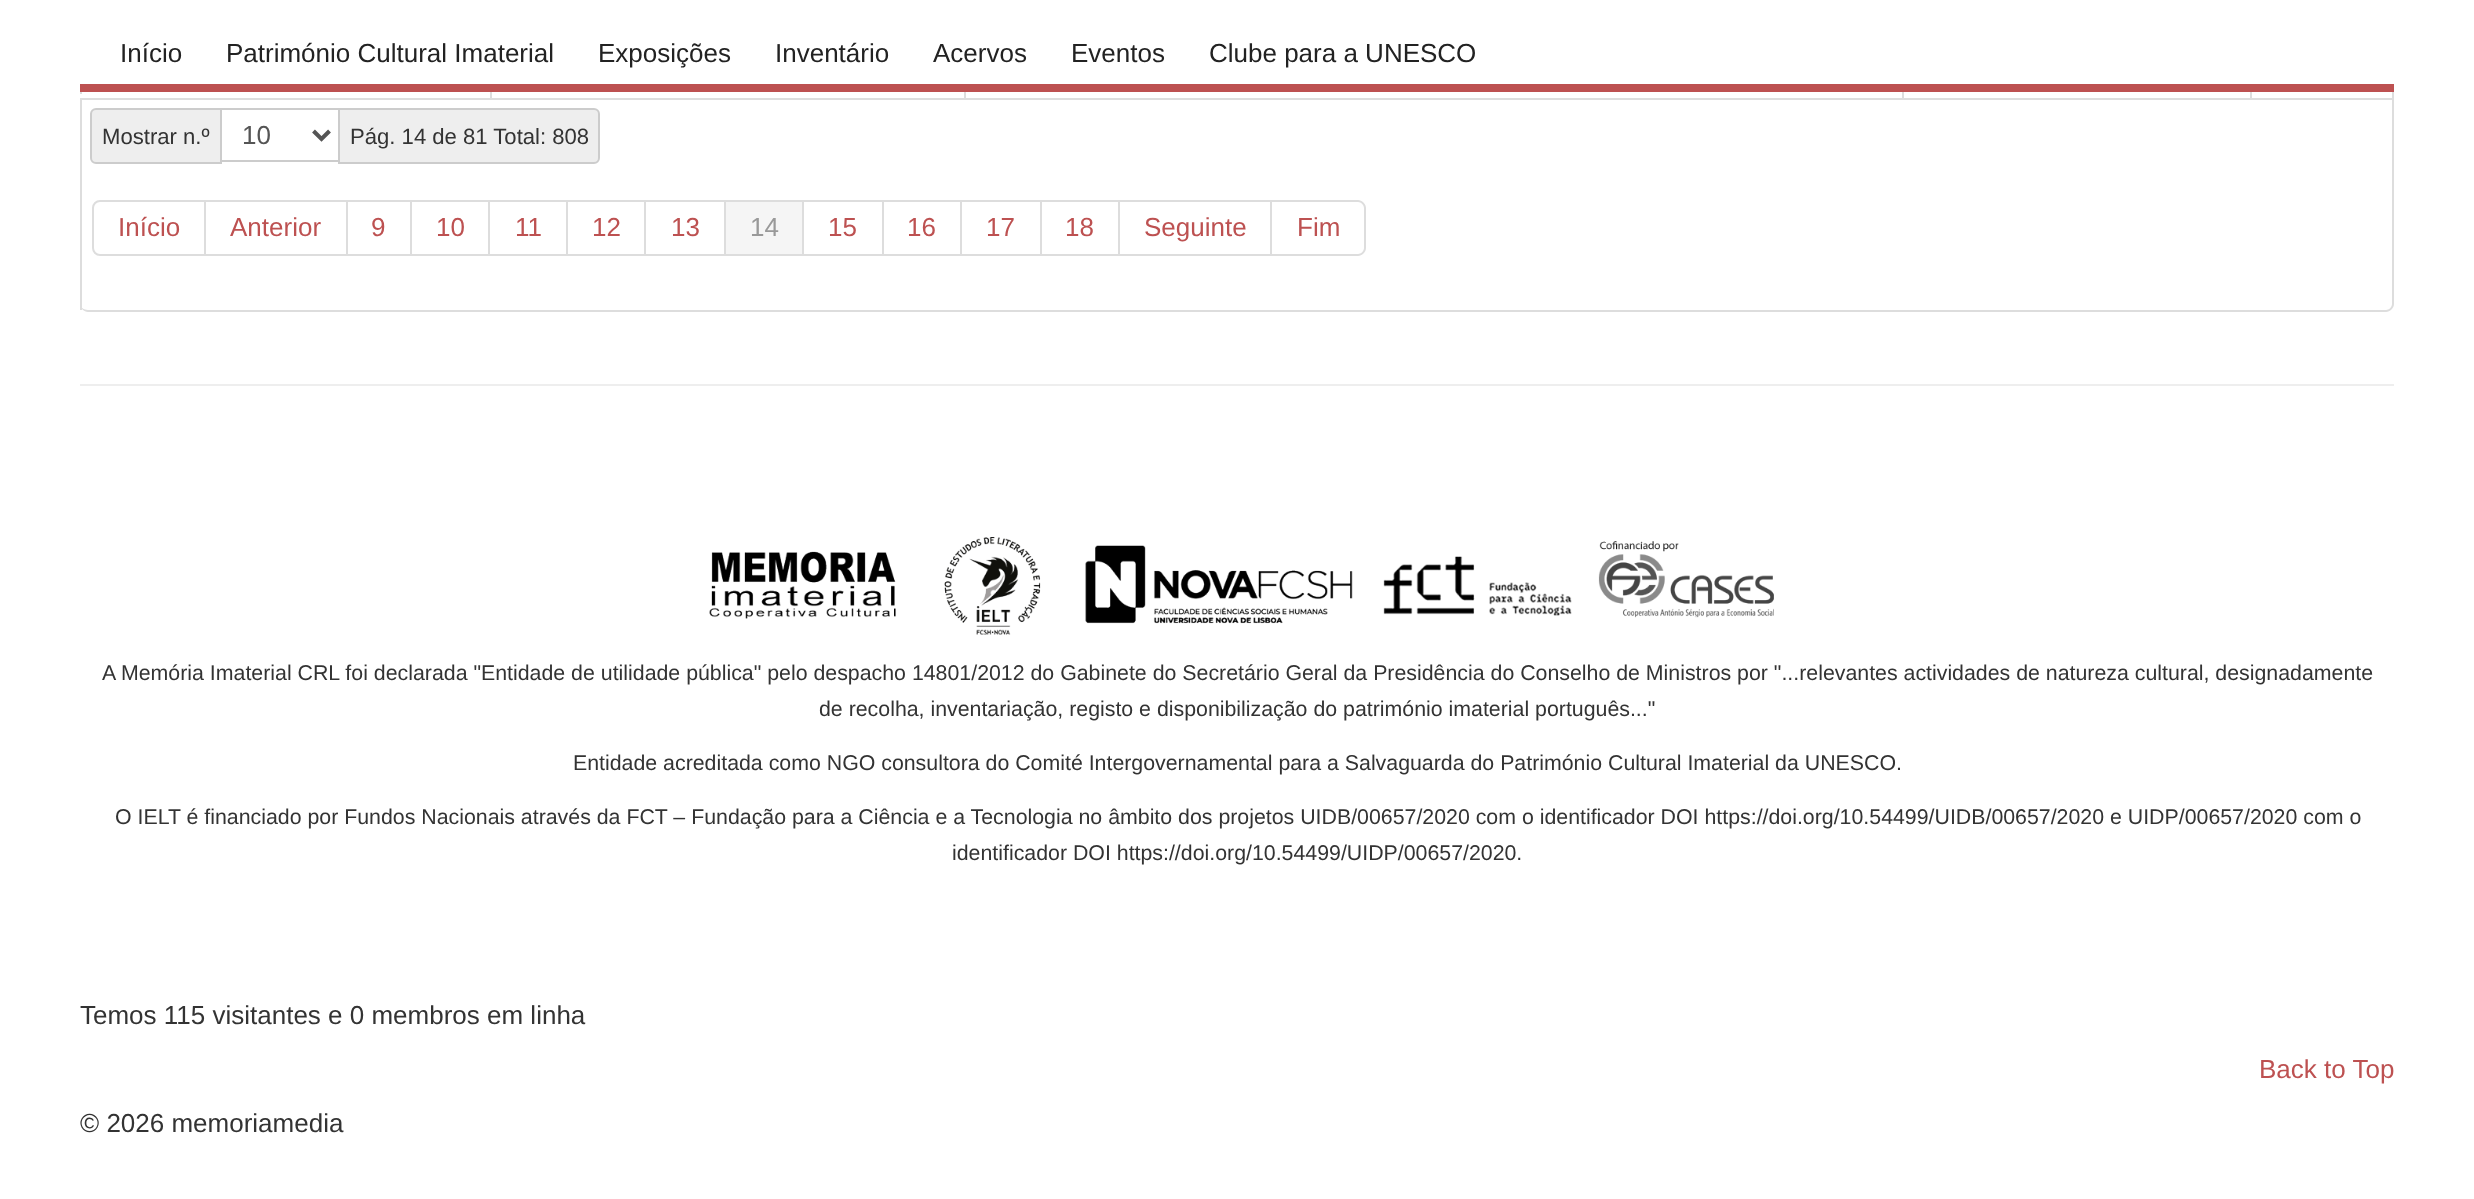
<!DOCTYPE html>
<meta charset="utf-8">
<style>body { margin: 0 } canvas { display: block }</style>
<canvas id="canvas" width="2474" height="1199"></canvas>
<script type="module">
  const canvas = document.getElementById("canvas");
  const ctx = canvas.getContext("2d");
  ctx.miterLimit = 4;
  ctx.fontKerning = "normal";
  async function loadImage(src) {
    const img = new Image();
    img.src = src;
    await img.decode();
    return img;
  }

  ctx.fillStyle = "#ffffff";
  ctx.fillRect(0, 0, 2474, 1199);
  ctx.fillStyle = "#dddddd";
  ctx.beginPath();
  ctx.moveTo(88, -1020);
  ctx.lineTo(2386, -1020);
  ctx.bezierCurveTo(2390, -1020, 2394, -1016, 2394, -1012);
  ctx.lineTo(2394, 304);
  ctx.bezierCurveTo(2394, 308, 2390, 312, 2386, 312);
  ctx.lineTo(88, 312);
  ctx.bezierCurveTo(84, 312, 80, 308, 80, 304);
  ctx.lineTo(80, -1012);
  ctx.bezierCurveTo(80, -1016, 84, -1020, 88, -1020);
  ctx.closePath();
  ctx.moveTo(88, -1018);
  ctx.lineTo(2386, -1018);
  ctx.bezierCurveTo(2389, -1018, 2392, -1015, 2392, -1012);
  ctx.lineTo(2392, 304);
  ctx.bezierCurveTo(2392, 307, 2389, 310, 2386, 310);
  ctx.lineTo(88, 310);
  ctx.bezierCurveTo(84, 310, 80, 307, 80, 304);
  ctx.lineTo(80, -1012);
  ctx.bezierCurveTo(80, -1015, 84, -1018, 88, -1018);
  ctx.closePath();
  ctx.fill("evenodd");
  ctx.fillStyle = "#ffffff";
  ctx.fillRect(2392, 0, 2, 84);
  ctx.fillStyle = "#bd5151";
  ctx.fillRect(80, 84, 2314, 8);
  ctx.font = "26px Liberation Sans";
  ctx.fillStyle = "#222222";
  ctx.fillText("Início", 120, 62);
  ctx.fillText("Património Cultural Imaterial", 226, 62);
  ctx.fillText("Exposições", 598, 62);
  ctx.fillText("Inventário", 775, 62);
  ctx.fillText("Acervos", 933, 62);
  ctx.fillText("Eventos", 1071, 62);
  ctx.fillText("Clube para a UNESCO", 1209, 62);
  ctx.fillStyle = "#dddddd";
  ctx.fillRect(80, 92, 2, 2);
  ctx.fillRect(490, 92, 2, 6);
  ctx.fillRect(964, 92, 2, 6);
  ctx.fillRect(1902, 92, 2, 6);
  ctx.fillRect(2250, 92, 2, 6);
  ctx.fillRect(80, 98, 2312, 2);
  ctx.fillRect(80, 98, 2, 212);
  ctx.fillStyle = "#eeeeee";
  ctx.beginPath();
  ctx.roundRect(91, 109, 130, 54, [5, 0, 0, 5]);
  ctx.fill();
  ctx.strokeStyle = "#cccccc";
  ctx.lineWidth = 2;
  ctx.stroke();
  ctx.font = "22.1px Liberation Sans";
  ctx.fillStyle = "#333333";
  ctx.fillText("Mostrar n.º", 102, 144);
  ctx.fillStyle = "#eeeeee";
  ctx.beginPath();
  ctx.roundRect(339, 109, 260, 54, [0, 5, 5, 0]);
  ctx.fill();
  ctx.stroke();
  ctx.strokeRect(221, 109, 118, 52);
  ctx.beginPath();
  ctx.moveTo(313.5, 131);
  ctx.lineTo(321.5, 139);
  ctx.lineTo(329.5, 131);
  ctx.strokeStyle = "#555555";
  ctx.lineWidth = 4;
  ctx.stroke();
  ctx.font = "26px Liberation Sans";
  ctx.fillStyle = "#555555";
  ctx.fillText("10", 242, 144);
  ctx.font = "22.1px Liberation Sans";
  ctx.fillStyle = "#333333";
  ctx.fillText("Pág. 14 de 81 Total: 808", 350, 144);
  ctx.beginPath();
  ctx.roundRect(93, 201, 112, 54, [7, 0, 0, 7]);
  ctx.strokeStyle = "#dddddd";
  ctx.lineWidth = 2;
  ctx.stroke();
  ctx.font = "26px Liberation Sans";
  ctx.fillStyle = "#bd5151";
  ctx.fillText("Início", 118, 236);
  ctx.fillStyle = "#dddddd";
  ctx.fillRect(206, 200, 1066, 2);
  ctx.fillRect(346, 200, 2, 56);
  ctx.fillRect(206, 254, 142, 2);
  ctx.fillStyle = "#bd5151";
  ctx.fillText("Anterior", 230, 236);
  ctx.fillStyle = "#dddddd";
  ctx.fillRect(410, 200, 2, 56);
  ctx.fillRect(348, 254, 64, 2);
  ctx.fillStyle = "#bd5151";
  ctx.fillText("9", 371, 236);
  ctx.fillStyle = "#dddddd";
  ctx.fillRect(488, 200, 2, 56);
  ctx.fillRect(412, 254, 78, 2);
  ctx.fillStyle = "#bd5151";
  ctx.fillText("10", 436, 236);
  ctx.fillStyle = "#dddddd";
  ctx.fillRect(566, 200, 2, 56);
  ctx.fillRect(490, 254, 78, 2);
  ctx.fillStyle = "#bd5151";
  ctx.fillText("11", 515, 236);
  ctx.fillStyle = "#dddddd";
  ctx.fillRect(644, 200, 2, 56);
  ctx.fillRect(568, 254, 78, 2);
  ctx.fillStyle = "#bd5151";
  ctx.fillText("12", 592, 236);
  ctx.fillStyle = "#dddddd";
  ctx.fillRect(724, 200, 2, 56);
  ctx.fillRect(646, 254, 80, 2);
  ctx.fillStyle = "#bd5151";
  ctx.fillText("13", 671, 236);
  ctx.fillStyle = "#f5f5f5";
  ctx.fillRect(726, 202, 76, 52);
  ctx.fillStyle = "#dddddd";
  ctx.fillRect(802, 200, 2, 56);
  ctx.fillRect(726, 254, 78, 2);
  ctx.fillStyle = "#999999";
  ctx.fillText("14", 750, 236);
  ctx.fillStyle = "#dddddd";
  ctx.fillRect(882, 200, 2, 56);
  ctx.fillRect(804, 254, 80, 2);
  ctx.fillStyle = "#bd5151";
  ctx.fillText("15", 828, 236);
  ctx.fillStyle = "#dddddd";
  ctx.fillRect(960, 200, 2, 56);
  ctx.fillRect(884, 254, 78, 2);
  ctx.fillStyle = "#bd5151";
  ctx.fillText("16", 907, 236);
  ctx.fillStyle = "#dddddd";
  ctx.fillRect(1040, 200, 2, 56);
  ctx.fillRect(962, 254, 80, 2);
  ctx.fillStyle = "#bd5151";
  ctx.fillText("17", 986, 236);
  ctx.fillStyle = "#dddddd";
  ctx.fillRect(1118, 200, 2, 56);
  ctx.fillRect(1042, 254, 78, 2);
  ctx.fillStyle = "#bd5151";
  ctx.fillText("18", 1065, 236);
  ctx.fillStyle = "#dddddd";
  ctx.fillRect(1270, 200, 2, 56);
  ctx.fillRect(1120, 254, 152, 2);
  ctx.fillStyle = "#bd5151";
  ctx.fillText("Seguinte", 1144, 236);
  ctx.fillStyle = "#dddddd";
  ctx.beginPath();
  ctx.moveTo(1272, 200);
  ctx.lineTo(1358, 200);
  ctx.bezierCurveTo(1362, 200, 1366, 204, 1366, 208);
  ctx.lineTo(1366, 248);
  ctx.bezierCurveTo(1366, 252, 1362, 256, 1358, 256);
  ctx.lineTo(1272, 256);
  ctx.closePath();
  ctx.moveTo(1272, 202);
  ctx.lineTo(1358, 202);
  ctx.bezierCurveTo(1361, 202, 1364, 205, 1364, 208);
  ctx.lineTo(1364, 248);
  ctx.bezierCurveTo(1364, 251, 1361, 254, 1358, 254);
  ctx.lineTo(1272, 254);
  ctx.closePath();
  ctx.fill("evenodd");
  ctx.fillStyle = "#bd5151";
  ctx.fillText("Fim", 1297, 236);
  ctx.fillStyle = "#eeeeee";
  ctx.fillRect(80, 384, 2314, 2);
  ctx.drawImage(await loadImage("img1.png"), 709, 537, 1065, 98);
  ctx.font = "21.33px Liberation Sans";
  ctx.fillStyle = "#333333";
  ctx.fillText("A Memória Imaterial CRL foi declarada \"Entidade de utilidade pública\" pelo despacho 14801/2012 do Gabinete do Secretário Geral da Presidência do Conselho de Ministros por \"...relevantes actividades de natureza cultural, designadamente", 102, 680);
  ctx.fillText("de recolha, inventariação, registo e disponibilização do património imaterial português...\"", 819, 716);
  ctx.fillText("Entidade acreditada como NGO consultora do Comité Intergovernamental para a Salvaguarda do Património Cultural Imaterial da UNESCO.", 573, 770);
  ctx.fillText("O IELT é financiado por Fundos Nacionais através da FCT – Fundação para a Ciência e a Tecnologia no âmbito dos projetos UIDB/00657/2020 com o identificador DOI https://doi.org/10.54499/UIDB/00657/2020 e UIDP/00657/2020 com o", 115, 824);
  ctx.fillText("identificador DOI https://doi.org/10.54499/UIDP/00657/2020.", 952, 860);
  ctx.font = "26px Liberation Sans";
  ctx.fillText("Temos 115 visitantes e 0 membros em linha", 80, 1024);
  ctx.fillStyle = "#bd5151";
  ctx.fillText("Back to Top", 2259, 1078);
  ctx.fillStyle = "#333333";
  ctx.fillText("© 2026 memoriamedia", 80, 1132);
</script>
